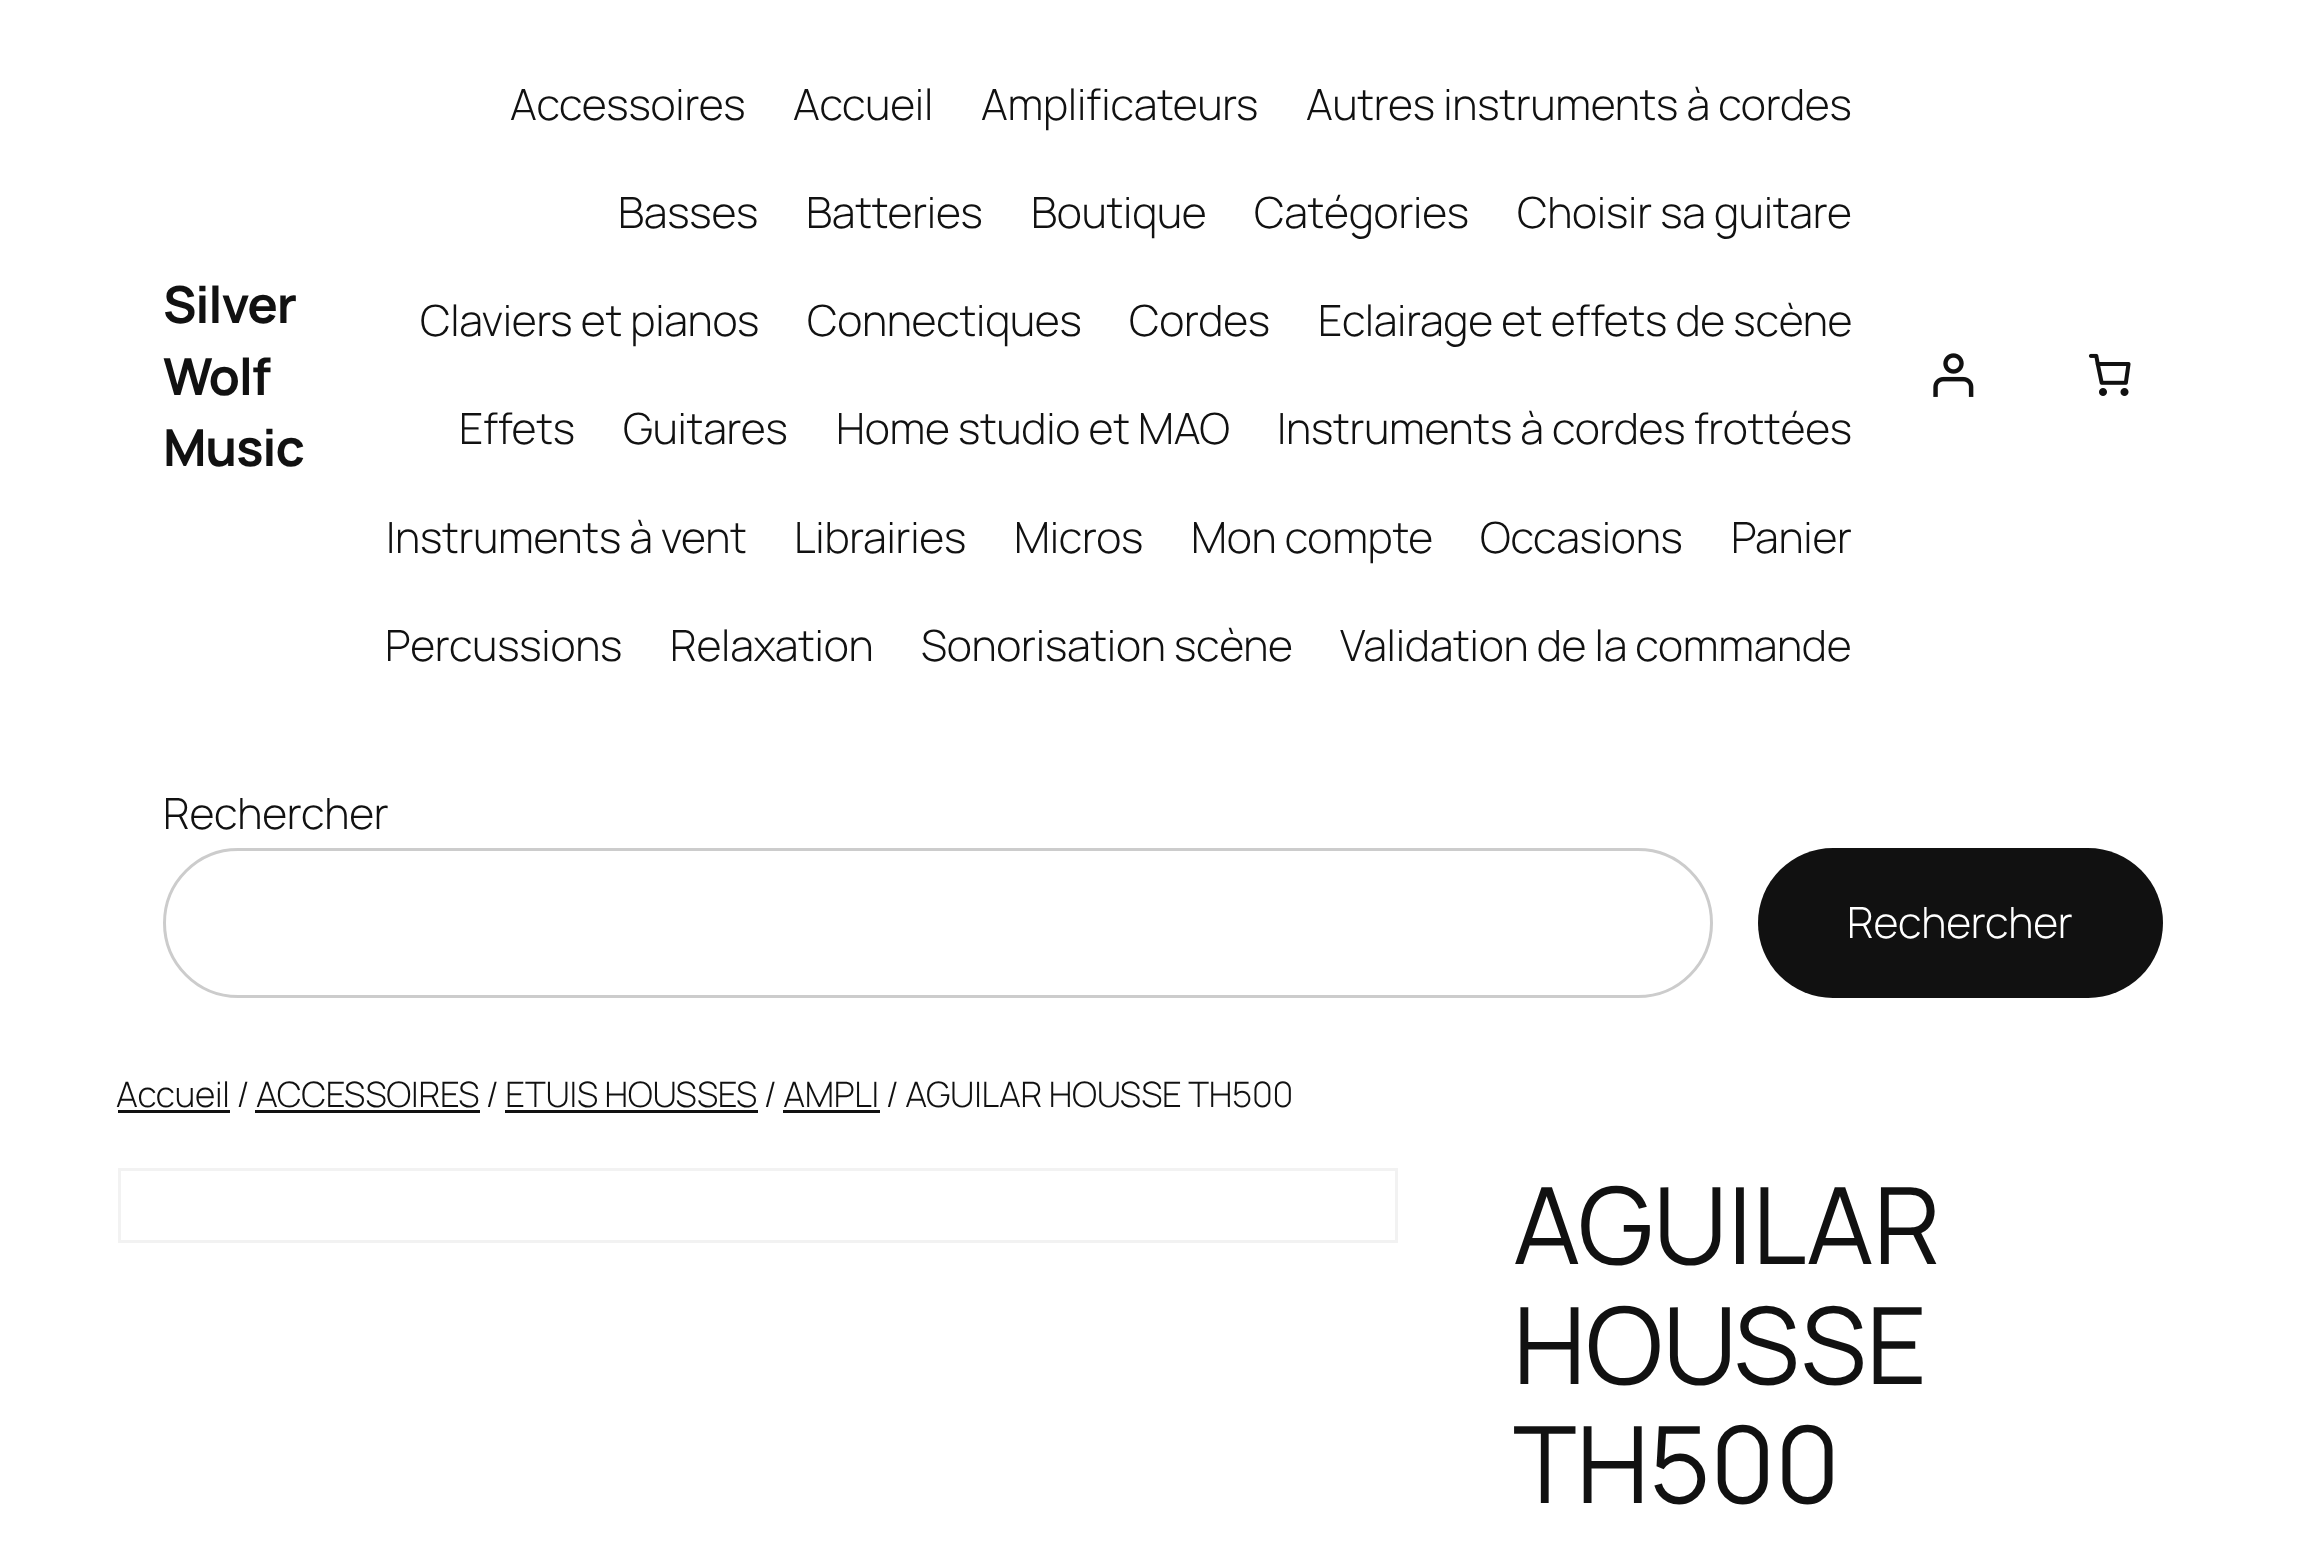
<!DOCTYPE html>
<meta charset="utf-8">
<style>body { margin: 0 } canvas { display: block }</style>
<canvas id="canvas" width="2324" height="1552"></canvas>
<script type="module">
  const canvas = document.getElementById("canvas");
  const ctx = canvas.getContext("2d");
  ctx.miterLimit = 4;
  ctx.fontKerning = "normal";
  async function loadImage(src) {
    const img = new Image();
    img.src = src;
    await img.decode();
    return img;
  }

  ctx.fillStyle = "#ffffff";
  ctx.fillRect(0, 0, 2324, 1552);
  ctx.letterSpacing = "-1.25px";
  ctx.font = "bold 51px Manrope";
  ctx.fillStyle = "#111111";
  ctx.fillText("Silver", 163, 323);
  ctx.fillText("Wolf", 163, 395);
  ctx.fillText("Music", 163, 466);
  ctx.letterSpacing = "-0.25px";
  ctx.font = "300 43px Manrope";
  ctx.fillText("Accessoires", 510, 120);
  ctx.fillText("Accueil", 793, 120);
  ctx.fillText("Amplificateurs", 981, 120);
  ctx.fillText("Autres instruments à cordes", 1306, 120);
  ctx.fillText("Basses", 618, 228);
  ctx.fillText("Batteries", 806, 228);
  ctx.fillText("Boutique", 1031, 228);
  ctx.fillText("Catégories", 1254, 228);
  ctx.fillText("Choisir sa guitare", 1517, 228);
  ctx.fillText("Claviers et pianos", 420, 336);
  ctx.fillText("Connectiques", 807, 336);
  ctx.fillText("Cordes", 1129, 336);
  ctx.fillText("Eclairage et effets de scène", 1318, 336);
  ctx.fillText("Effets", 459, 444);
  ctx.fillText("Guitares", 623, 444);
  ctx.fillText("Home studio et MAO", 836, 444);
  ctx.fillText("Instruments à cordes frottées", 1277, 444);
  ctx.fillText("Instruments à vent", 386, 553);
  ctx.fillText("Librairies", 794, 553);
  ctx.fillText("Micros", 1014, 553);
  ctx.fillText("Mon compte", 1191, 553);
  ctx.fillText("Occasions", 1480, 553);
  ctx.fillText("Panier", 1731, 553);
  ctx.fillText("Percussions", 385, 661);
  ctx.fillText("Relaxation", 670, 661);
  ctx.fillText("Sonorisation scène", 921, 661);
  ctx.fillText("Validation de la commande", 1340, 661);
  ctx.drawImage(await loadImage("img1.png"), 1933, 353, 41, 44);
  ctx.drawImage(await loadImage("img2.png"), 2088, 353, 43, 43);
  ctx.fillText("Rechercher", 163, 829);
  ctx.beginPath();
  ctx.roundRect(164.5, 849.5, 1547, 147, 73.5);
  ctx.strokeStyle = "#cccccc";
  ctx.lineWidth = 3;
  ctx.stroke();
  ctx.beginPath();
  ctx.roundRect(1758, 848, 405, 150, 75);
  ctx.fill();
  ctx.fillStyle = "#ffffff";
  ctx.fillText("Rechercher", 1847, 938);
  ctx.font = "300 35px Manrope";
  ctx.fillStyle = "#111111";
  ctx.fillText("Accueil / ACCESSOIRES / ETUIS HOUSSES / AMPLI / AGUILAR HOUSSE TH500", 116, 1107);
  ctx.fillRect(118, 1110, 112, 3);
  ctx.fillRect(255, 1110, 225, 3);
  ctx.fillRect(505, 1110, 253, 3);
  ctx.fillRect(783, 1110, 97, 3);
  ctx.strokeStyle = "#f2f2f2";
  ctx.strokeRect(119.5, 1169.5, 1277, 72);
  ctx.font = "106.5px Manrope";
  ctx.fillText("AGUILAR", 1513, 1264);
  ctx.fillText("HOUSSE", 1513, 1384);
  ctx.fillText("TH500", 1513, 1503);
</script>
